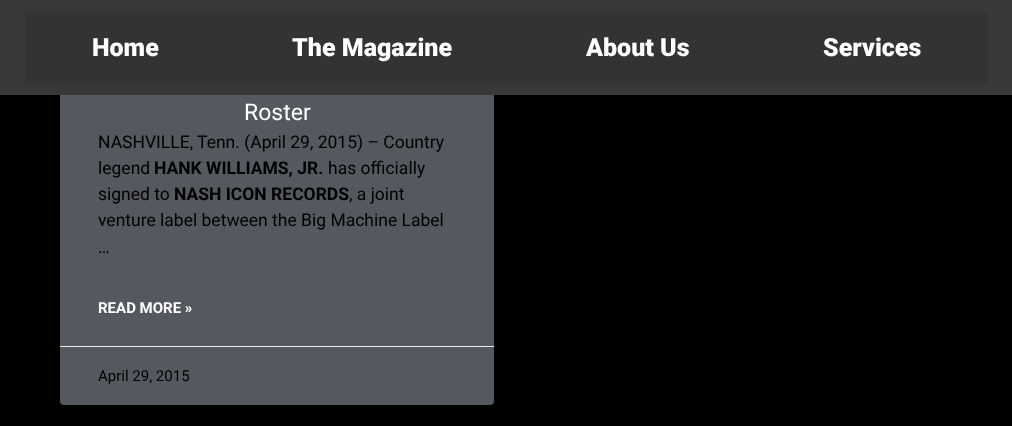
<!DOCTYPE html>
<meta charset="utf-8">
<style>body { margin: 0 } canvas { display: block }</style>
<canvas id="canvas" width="1012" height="426"></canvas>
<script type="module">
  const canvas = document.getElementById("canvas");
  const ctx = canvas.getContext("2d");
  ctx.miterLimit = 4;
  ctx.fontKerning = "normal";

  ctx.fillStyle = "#000000";
  ctx.fillRect(0, 0, 1012, 426);
  ctx.fillStyle = "#54595f";
  ctx.beginPath();
  ctx.roundRect(60, -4, 434, 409, 4);
  ctx.fill();
  ctx.fillStyle = "#383838";
  ctx.fillRect(0, 0, 1012, 95);
  ctx.fillStyle = "#333333";
  ctx.fillRect(25, 13, 963, 70);
  ctx.font = "900 25px Roboto";
  ctx.fillStyle = "#ffffff";
  ctx.fillText("Home", 92, 56);
  ctx.fillText("The Magazine", 292, 56);
  ctx.fillText("About Us", 586, 56);
  ctx.fillText("Services", 823, 56);
  ctx.font = "23px Roboto";
  ctx.fillText("Roster", 244, 120);
  ctx.font = "17.5px Roboto";
  ctx.fillStyle = "#000000";
  ctx.fillText("NASHVILLE, Tenn. (April 29, 2015) – Country", 98, 148);
  ctx.fillText("legend", 98, 174);
  ctx.font = "bold 17.5px Roboto";
  ctx.fillText("HANK WILLIAMS, JR.", 154, 174);
  ctx.font = "17.5px Roboto";
  ctx.fillText("has officially", 328, 174);
  ctx.fillText("signed to", 98, 200);
  ctx.font = "bold 17.5px Roboto";
  ctx.fillText("NASH ICON RECORDS", 174, 200);
  ctx.font = "17.5px Roboto";
  ctx.fillText(", a joint", 349, 200);
  ctx.fillText("venture label between the Big Machine Label", 98, 226);
  ctx.fillText("…", 98, 253);
  ctx.font = "bold 15px Roboto";
  ctx.fillStyle = "#ffffff";
  ctx.fillText("READ MORE »", 98, 313);
  ctx.fillStyle = "#eaeaea";
  ctx.fillRect(60, 346, 434, 1);
  ctx.font = "15px Roboto";
  ctx.fillStyle = "#000000";
  ctx.fillText("April 29, 2015", 98, 381);
</script>
